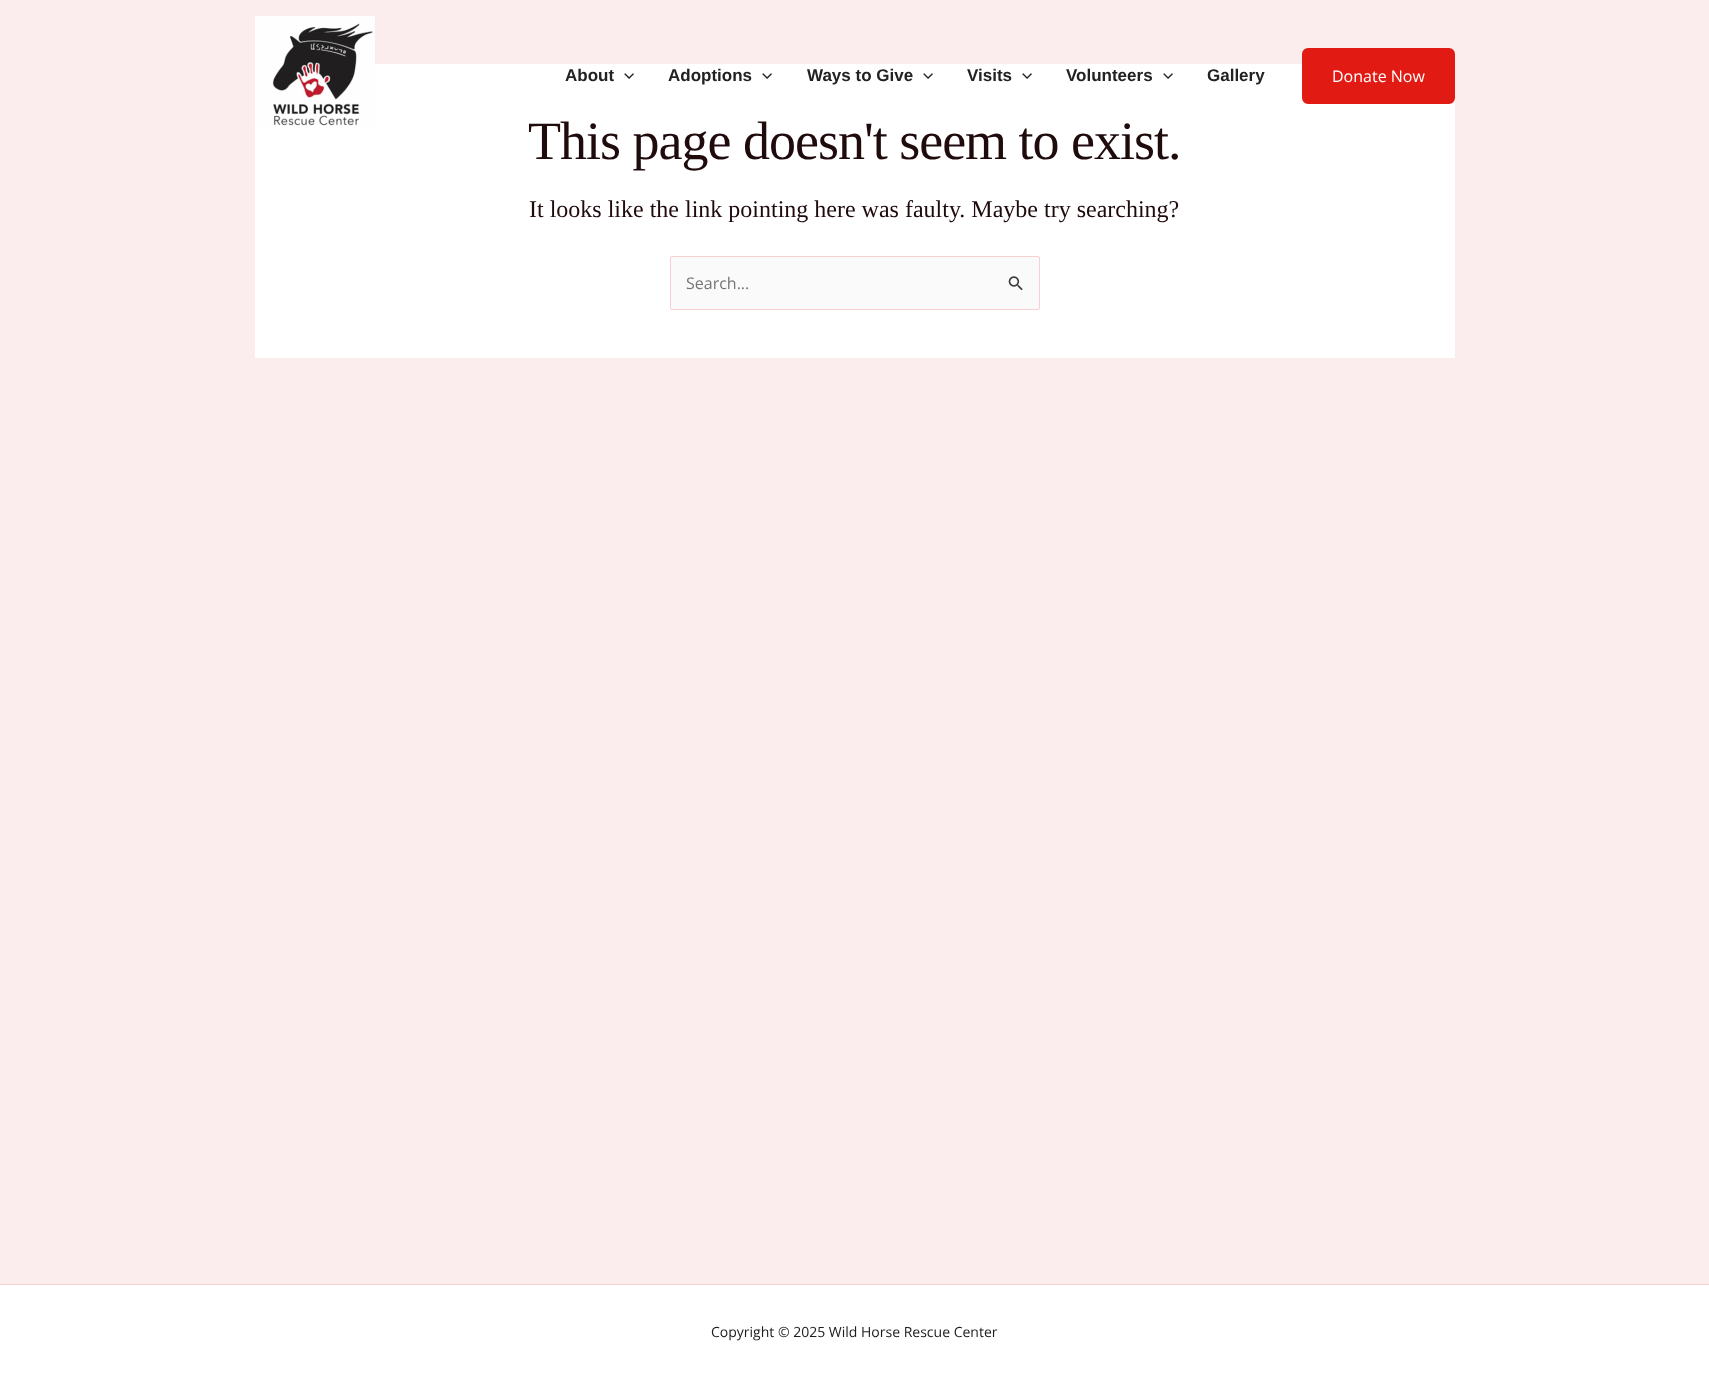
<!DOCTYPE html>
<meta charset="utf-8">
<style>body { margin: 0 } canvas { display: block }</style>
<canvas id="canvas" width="1709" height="1379"></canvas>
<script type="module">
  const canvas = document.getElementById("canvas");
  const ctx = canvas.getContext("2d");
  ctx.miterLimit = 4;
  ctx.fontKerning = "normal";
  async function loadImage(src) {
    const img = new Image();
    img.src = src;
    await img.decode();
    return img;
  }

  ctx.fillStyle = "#fbeced";
  ctx.fillRect(0, 0, 1709, 1379);
  ctx.fillStyle = "#ffffff";
  ctx.fillRect(255, 64, 1200, 294);
  ctx.drawImage(await loadImage("img1.png"), 255, 16, 120, 110);
  ctx.font = "bold 17px Liberation Sans";
  ctx.fillStyle = "#222222";
  ctx.fillText("About", 565, 81);
  ctx.drawImage(await loadImage("img2.png"), 624, 73, 10, 6);
  ctx.fillText("Adoptions", 668, 81);
  ctx.drawImage(await loadImage("img2.png"), 762, 73, 10, 6);
  ctx.fillText("Ways to Give", 807, 81);
  ctx.drawImage(await loadImage("img2.png"), 923, 73, 10, 6);
  ctx.fillText("Visits", 967, 81);
  ctx.drawImage(await loadImage("img2.png"), 1022, 73, 10, 6);
  ctx.fillText("Volunteers", 1066, 81);
  ctx.drawImage(await loadImage("img2.png"), 1163, 73, 10, 6);
  ctx.fillText("Gallery", 1207, 81);
  ctx.fillStyle = "#e11b14";
  ctx.beginPath();
  ctx.roundRect(1303, 49, 151, 54, 5);
  ctx.fill();
  ctx.strokeStyle = "#e11b14";
  ctx.lineWidth = 2;
  ctx.stroke();
  ctx.font = "16px Open Sans";
  ctx.fillStyle = "#ffffff";
  ctx.fillText("Donate Now", 1332, 82);
  ctx.letterSpacing = "-1px";
  ctx.font = "54px Liberation Serif";
  ctx.fillStyle = "#1f0a0c";
  ctx.fillText("This page doesn't seem to exist.", 528, 159);
  ctx.letterSpacing = "0px";
  ctx.font = "24px Liberation Serif";
  ctx.fillText("It looks like the link pointing here was faulty. Maybe try searching?", 529, 217);
  ctx.fillStyle = "#fafafa";
  ctx.beginPath();
  ctx.roundRect(670.5, 256.5, 369, 53, 1.5);
  ctx.fill();
  ctx.strokeStyle = "#f7d0d1";
  ctx.lineWidth = 1;
  ctx.stroke();
  ctx.font = "16px Open Sans";
  ctx.fillStyle = "#757575";
  ctx.fillText("Search...", 686, 289);
  ctx.drawImage(await loadImage("img3.png"), 1008, 276, 15, 15);
  ctx.fillStyle = "#ffffff";
  ctx.fillRect(0, 1285, 1709, 94);
  ctx.fillStyle = "#f7d0d1";
  ctx.fillRect(0, 1284, 1709, 1);
  ctx.font = "14px Open Sans";
  ctx.fillStyle = "#1c1b1b";
  ctx.fillText("Copyright © 2025 Wild Horse Rescue Center", 711, 1337);
</script>
